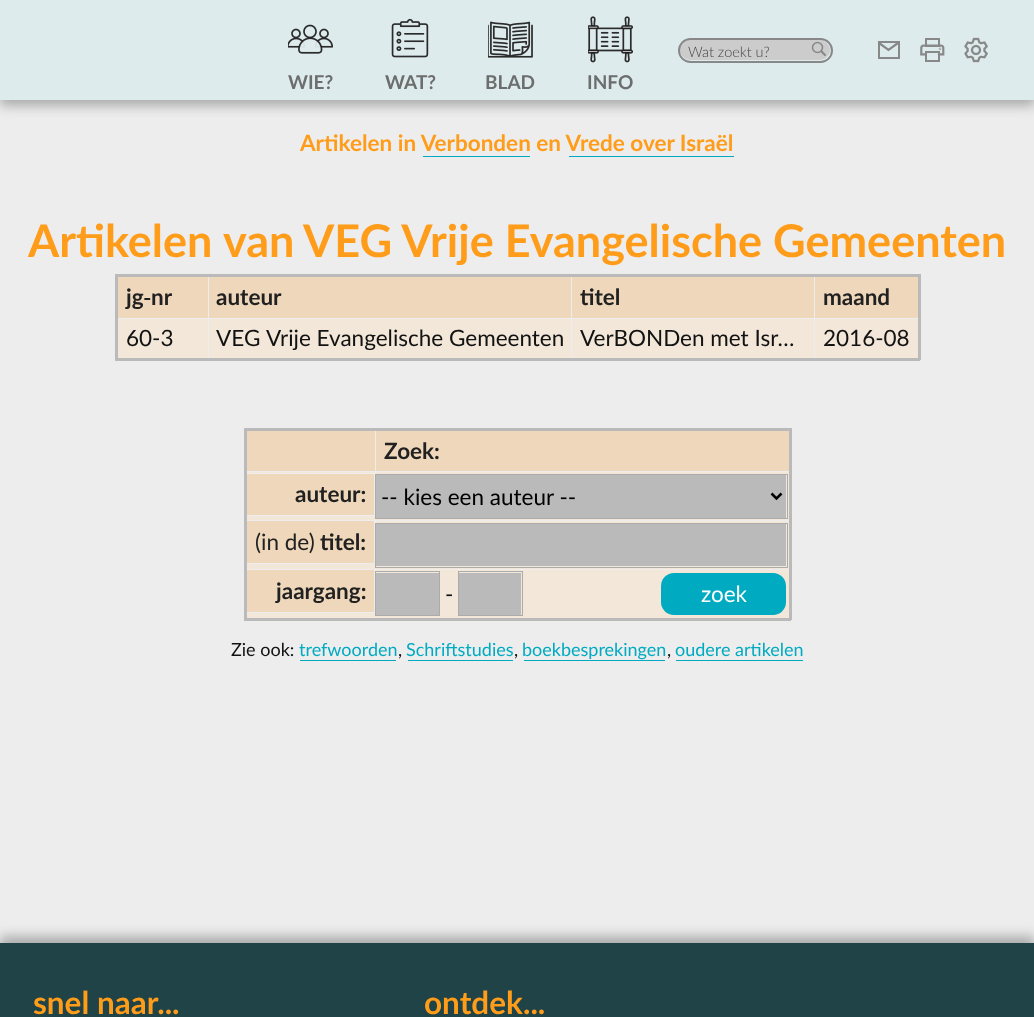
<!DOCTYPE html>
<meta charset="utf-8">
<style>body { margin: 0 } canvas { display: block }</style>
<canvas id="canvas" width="1034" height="1017"></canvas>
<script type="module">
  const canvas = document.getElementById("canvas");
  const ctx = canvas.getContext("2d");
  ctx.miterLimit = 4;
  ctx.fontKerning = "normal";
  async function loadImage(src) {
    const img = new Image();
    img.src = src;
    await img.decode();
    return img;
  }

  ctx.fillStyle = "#ededed";
  ctx.fillRect(0, 0, 1034, 1017);
  ctx.fillStyle = "#ababab";
  ctx.filter = "blur(6px)";
  ctx.beginPath();
  ctx.rect(0, 6, 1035, 100);
  ctx.fill();
  ctx.filter = "none";
  ctx.fillStyle = "#deebed";
  ctx.fillRect(0, 0, 1034, 100);
  ctx.fillStyle = "#cccccc";
  ctx.beginPath();
  ctx.roundRect(680, 40, 150, 20, 10);
  ctx.fill();
  ctx.beginPath();
  ctx.moveTo(821.5, 51.5);
  ctx.lineTo(825, 55);
  ctx.strokeStyle = "#888888";
  ctx.lineWidth = 2.1;
  ctx.lineCap = "round";
  ctx.stroke();
  ctx.beginPath();
  ctx.arc(817.5, 47.5, 5, 0, Math.PI * 2);
  ctx.lineWidth = 1.5;
  ctx.stroke();
  ctx.beginPath();
  ctx.roundRect(679, 39, 153, 23, 11.5);
  ctx.lineWidth = 2;
  ctx.stroke();
  ctx.font = "300 14.5px Lato";
  ctx.fillStyle = "#454545";
  ctx.fillText("Wat zoekt u?", 688, 57);
  ctx.strokeRect(879, 42, 20, 16);
  ctx.beginPath();
  ctx.moveTo(879, 43);
  ctx.lineTo(888.5, 50);
  ctx.lineTo(898, 43);
  ctx.lineWidth = 2.2;
  ctx.stroke();
  ctx.drawImage(await loadImage("img1.png"), 920, 38, 25, 24);
  ctx.drawImage(await loadImage("img2.png"), 964, 37, 24, 26);
  ctx.drawImage(await loadImage("img3.png"), 288, 24, 45, 30);
  ctx.font = "bold 19px Lato";
  ctx.fillStyle = "#6c6d6d";
  ctx.fillText("WIE?", 288, 89);
  ctx.drawImage(await loadImage("img4.png"), 391, 18, 38, 40);
  ctx.fillText("WAT?", 385, 89);
  ctx.drawImage(await loadImage("img5.png"), 488, 21, 45, 37);
  ctx.fillText("BLAD", 485, 89);
  ctx.drawImage(await loadImage("img6.png"), 588, 16, 45, 47);
  ctx.fillText("INFO", 587, 89);
  ctx.font = "bold 22.5px Lato";
  ctx.fillStyle = "#ff9c1a";
  ctx.fillText("Artikelen in Verbonden en Vrede over Israël", 300, 151);
  ctx.fillStyle = "#00abc2";
  ctx.fillRect(423, 156, 107, 1);
  ctx.fillRect(569, 156, 165, 1);
  ctx.font = "bold 45px Lato";
  ctx.fillStyle = "#ff9c1a";
  ctx.fillText("Artikelen", 28, 257);
  ctx.fillText("van", 223, 257);
  ctx.fillText("VEG Vrije Evangelische Gemeenten", 303, 257);
  ctx.fillStyle = "#eed7ba";
  ctx.fillRect(209, 277, 605, 41);
  ctx.fillStyle = "#f2e7d9";
  ctx.fillRect(118, 319, 800, 39);
  ctx.fillStyle = "#ededed";
  ctx.fillRect(571, 274, 1, 85);
  ctx.fillStyle = "#bababa";
  ctx.fillRect(115, 274, 805, 3);
  ctx.fillRect(918, 274, 3, 86);
  ctx.fillStyle = "#ededed";
  ctx.fillRect(208, 318, 1, 41);
  ctx.fillRect(814, 318, 1, 41);
  ctx.fillStyle = "#bababa";
  ctx.fillRect(115, 358, 805, 3);
  ctx.fillRect(115, 274, 3, 86);
  ctx.fillStyle = "#eed7ba";
  ctx.fillRect(118, 277, 90, 41);
  ctx.font = "bold 22.5px Lato";
  ctx.fillStyle = "#212121";
  ctx.fillText("jg‑nr", 126, 305);
  ctx.fillText("auteur", 216, 305);
  ctx.fillText("titel", 580, 305);
  ctx.fillStyle = "#eed7ba";
  ctx.fillRect(815, 277, 103, 41);
  ctx.fillStyle = "#212121";
  ctx.fillText("maand", 823, 305);
  ctx.font = "22.5px Lato";
  ctx.fillStyle = "#121212";
  ctx.fillText("60-3", 126, 346);
  ctx.fillText("VEG", 216, 346);
  ctx.fillText("Vrije Evangelische Gemeenten", 266, 346);
  ctx.fillText("VerBONDen met Isr…", 580, 346);
  ctx.fillText("2016-08", 823, 346);
  ctx.fillStyle = "#bababa";
  ctx.fillRect(244, 428, 547, 3);
  ctx.fillRect(789, 428, 3, 192);
  ctx.fillStyle = "#f2e7d9";
  ctx.fillRect(247, 472, 542, 48);
  ctx.fillRect(247, 521, 542, 48);
  ctx.fillRect(247, 570, 542, 48);
  ctx.fillStyle = "#ededed";
  ctx.fillRect(375, 471, 1, 148);
  ctx.fillStyle = "#bababa";
  ctx.fillRect(244, 618, 547, 3);
  ctx.fillStyle = "#eed7ba";
  ctx.beginPath();
  ctx.rect(246.5, 473.5, 128, 42);
  ctx.fill();
  ctx.strokeStyle = "#ededed";
  ctx.lineWidth = 1;
  ctx.stroke();
  ctx.beginPath();
  ctx.rect(246.5, 520.5, 128, 43);
  ctx.fill();
  ctx.stroke();
  ctx.beginPath();
  ctx.rect(246.5, 569.5, 128, 43);
  ctx.fill();
  ctx.stroke();
  ctx.fillStyle = "#bababa";
  ctx.fillRect(244, 428, 3, 192);
  ctx.fillStyle = "#eed7ba";
  ctx.fillRect(247, 431, 128, 40);
  ctx.fillRect(376, 431, 413, 40);
  ctx.font = "bold 22.5px Lato";
  ctx.fillStyle = "#212121";
  ctx.fillText("Zoek:", 384, 459);
  ctx.fillText("auteur:", 295, 502);
  ctx.fillStyle = "#bababa";
  ctx.fillRect(376, 475, 410, 43);
  ctx.beginPath();
  ctx.moveTo(771.5, 493.5);
  ctx.lineTo(776.5, 498.5);
  ctx.lineTo(781.5, 493.5);
  ctx.strokeStyle = "#000000";
  ctx.lineWidth = 2.5;
  ctx.lineCap = "butt";
  ctx.stroke();
  ctx.strokeStyle = "#ababab";
  ctx.lineWidth = 1;
  ctx.strokeRect(375.5, 474.5, 412, 44);
  ctx.font = "22.5px Lato";
  ctx.fillStyle = "#000000";
  ctx.fillText("-- kies een auteur --", 381, 505);
  ctx.fillStyle = "#212121";
  ctx.fillText("(in de)", 255, 550);
  ctx.font = "bold 22.5px Lato";
  ctx.fillText("titel:", 320, 550);
  ctx.fillStyle = "#bababa";
  ctx.fillRect(376, 524, 410, 42);
  ctx.strokeRect(375.5, 523.5, 412, 44);
  ctx.fillStyle = "#212121";
  ctx.fillText("jaargang:", 276, 599);
  ctx.fillStyle = "#bababa";
  ctx.fillRect(376, 573, 63, 42);
  ctx.strokeRect(375.5, 571.5, 64, 44);
  ctx.font = "22.5px Lato";
  ctx.fillStyle = "#121212";
  ctx.fillText("-", 445, 602);
  ctx.fillStyle = "#bababa";
  ctx.fillRect(459, 573, 62, 42);
  ctx.strokeRect(458.5, 571.5, 64, 44);
  ctx.fillStyle = "#00abc2";
  ctx.beginPath();
  ctx.roundRect(661, 573, 125, 42, 13);
  ctx.fill();
  ctx.fillStyle = "#ffffff";
  ctx.fillText("zoek", 701, 602);
  ctx.font = "18px Lato";
  ctx.fillStyle = "#121212";
  ctx.fillText("Zie ook:", 231, 656);
  ctx.fillStyle = "#00abc2";
  ctx.fillText("trefwoorden", 299, 656);
  ctx.fillRect(300, 660, 96, 1);
  ctx.fillStyle = "#121212";
  ctx.fillText(",", 398, 656);
  ctx.fillStyle = "#00abc2";
  ctx.fillText("Schriftstudies", 406, 656);
  ctx.fillRect(408, 660, 105, 1);
  ctx.fillStyle = "#121212";
  ctx.fillText(",", 514, 656);
  ctx.fillStyle = "#00abc2";
  ctx.fillText("boekbesprekingen", 522, 656);
  ctx.fillRect(524, 660, 141, 1);
  ctx.fillStyle = "#121212";
  ctx.fillText(",", 667, 656);
  ctx.fillStyle = "#00abc2";
  ctx.fillText("oudere artikelen", 675, 656);
  ctx.fillRect(676, 660, 127, 1);
  ctx.fillStyle = "#ababab";
  ctx.filter = "blur(6px)";
  ctx.beginPath();
  ctx.rect(0, 936, 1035, 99);
  ctx.fill();
  ctx.filter = "none";
  ctx.fillStyle = "#1f4347";
  ctx.fillRect(0, 943, 1034, 74);
  ctx.font = "bold 31.5px Lato";
  ctx.fillStyle = "#ff9c1a";
  ctx.fillText("snel naar...", 33, 1014);
  ctx.fillText("ontdek...", 424, 1014);
</script>
